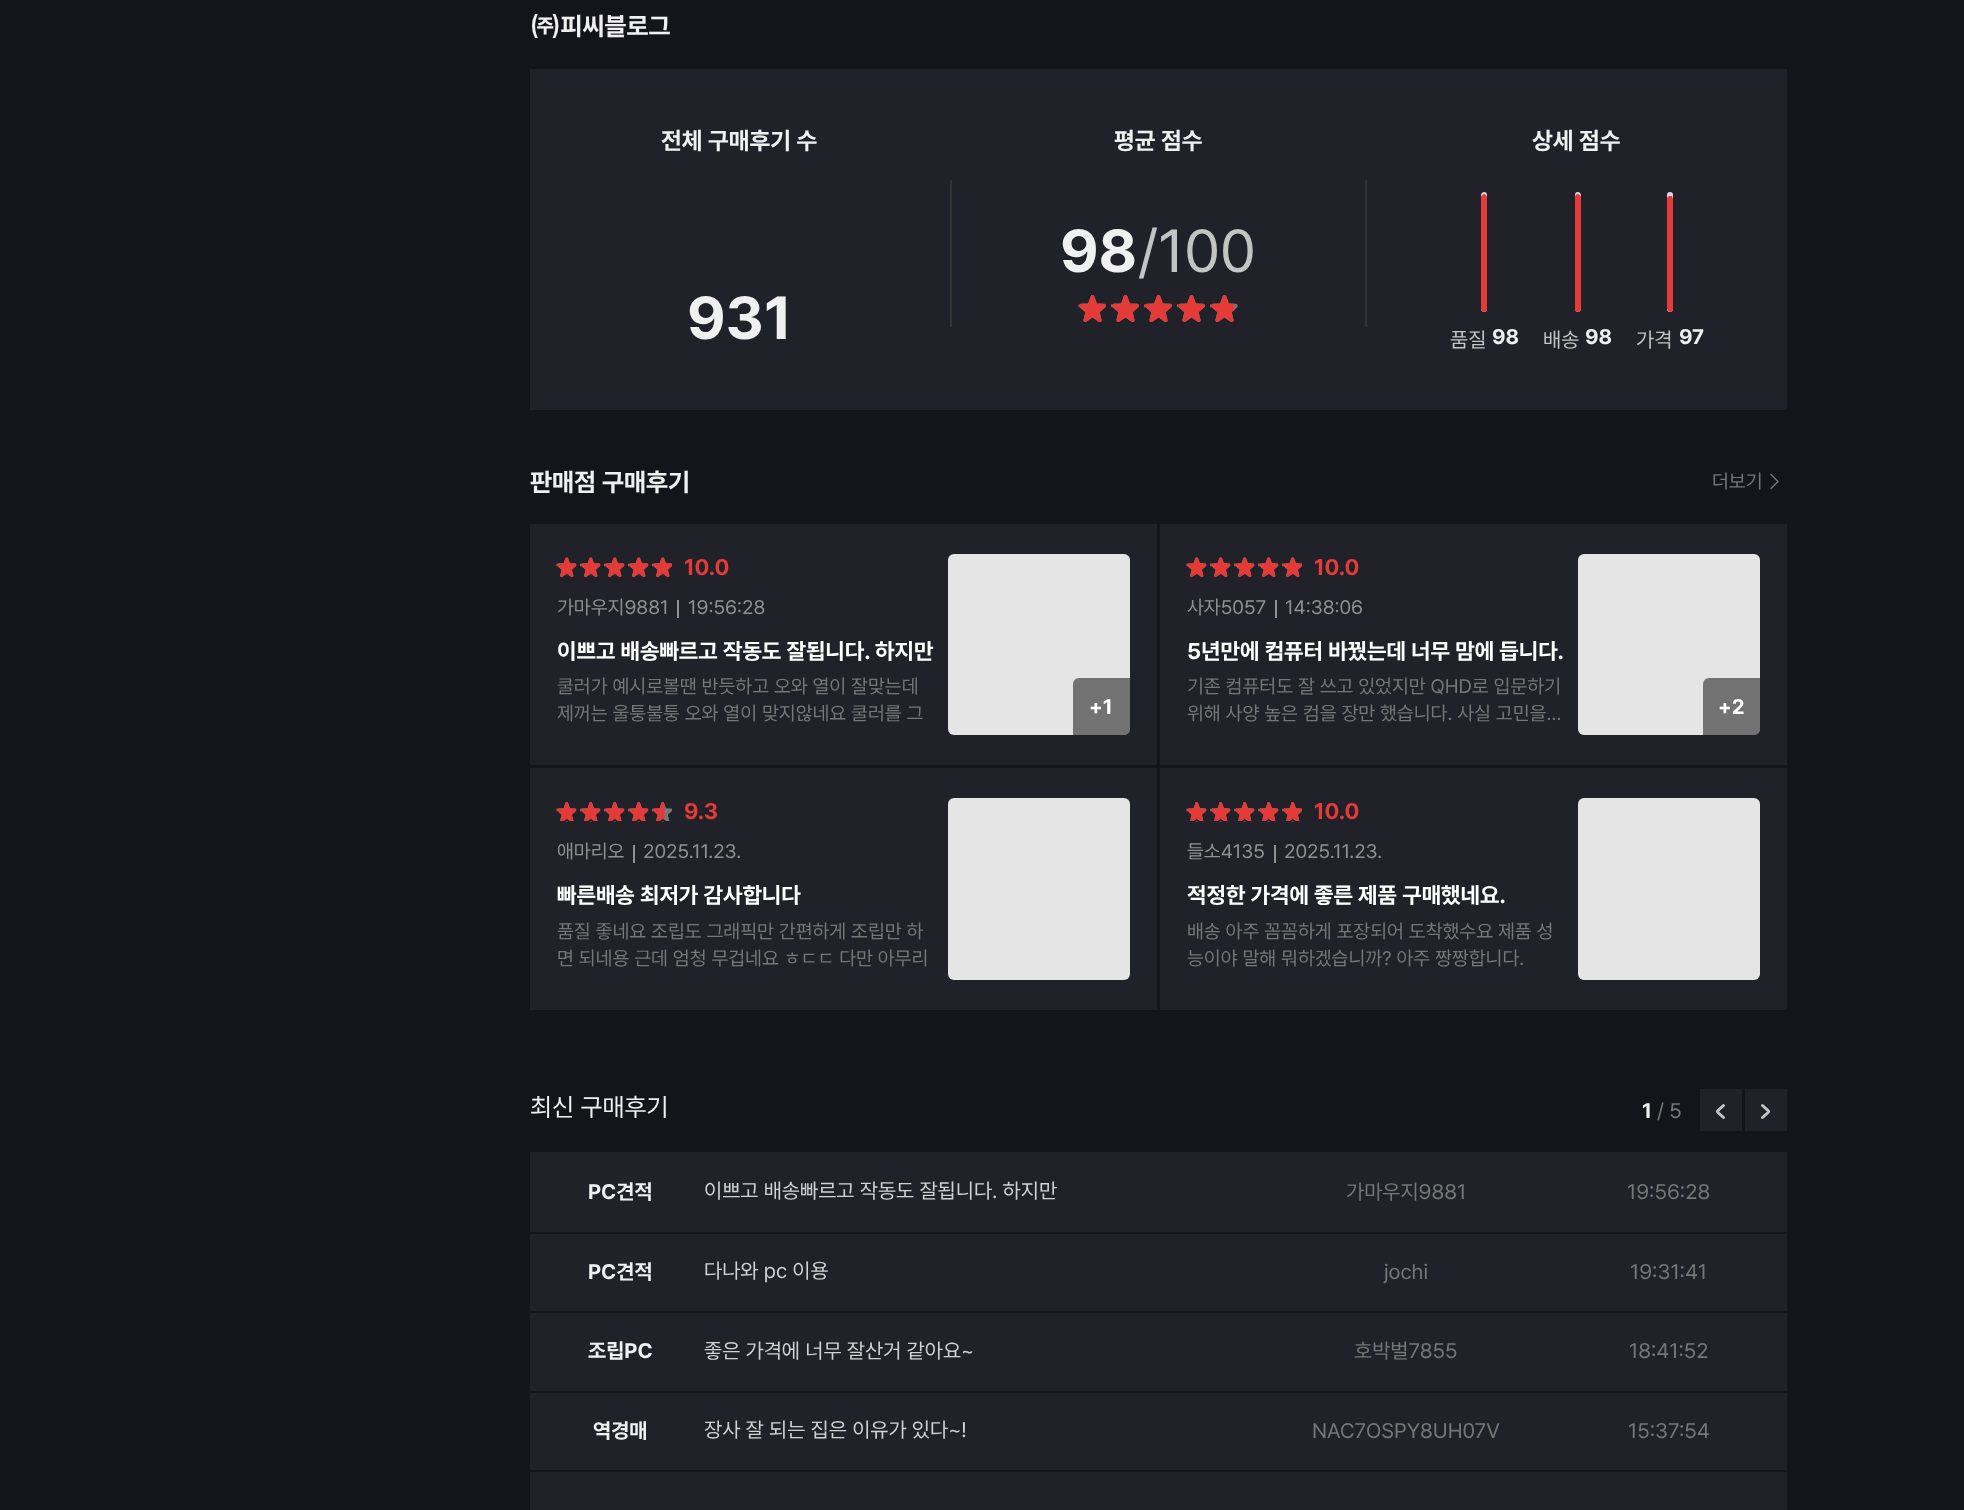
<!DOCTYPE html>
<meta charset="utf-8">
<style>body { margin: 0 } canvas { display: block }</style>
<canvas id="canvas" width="1964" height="1510"></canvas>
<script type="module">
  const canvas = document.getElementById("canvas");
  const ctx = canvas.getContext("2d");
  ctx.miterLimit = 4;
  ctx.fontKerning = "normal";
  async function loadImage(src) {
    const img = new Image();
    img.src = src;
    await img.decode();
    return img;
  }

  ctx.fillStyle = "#14141b";
  ctx.fillRect(0, 0, 1964, 1510);
  ctx.font = "bold 25.5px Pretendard";
  ctx.fillStyle = "#f0f0f0";
  ctx.fillText("㈜피씨블로그", 530, 35);
  ctx.fillStyle = "#202129";
  ctx.fillRect(530, 69, 1257, 341);
  ctx.font = "bold 24px Pretendard";
  ctx.fillStyle = "#f0f0f0";
  ctx.fillText("전체 구매후기 수", 661, 149);
  ctx.font = "bold 60px Pretendard";
  ctx.fillText("931", 687, 339);
  ctx.font = "bold 24px Pretendard";
  ctx.fillText("평균 점수", 1114, 149);
  ctx.fillStyle = "#333333";
  ctx.fillRect(950, 180, 2, 147);
  ctx.font = "bold 60px Pretendard";
  ctx.fillStyle = "#f0f0f0";
  ctx.fillText("98", 1060, 272);
  ctx.font = "60px Pretendard";
  ctx.fillStyle = "#c4c4c4";
  ctx.fillText("/100", 1138, 272);
  ctx.fillStyle = "#333333";
  ctx.fillRect(1365, 180, 2, 147);
  ctx.drawImage(await loadImage("img1.png"), 1078, 295, 160, 27);
  ctx.drawImage(await loadImage("img2.png"), 1078, 295, 157, 27);
  ctx.font = "bold 24px Pretendard";
  ctx.fillStyle = "#f0f0f0";
  ctx.fillText("상세 점수", 1532, 149);
  ctx.fillStyle = "#d9d9d9";
  ctx.beginPath();
  ctx.moveTo(1484, 312);
  ctx.bezierCurveTo(1483, 312, 1481, 311, 1481, 309);
  ctx.lineTo(1481, 195);
  ctx.bezierCurveTo(1481, 193, 1483, 192, 1484, 192);
  ctx.bezierCurveTo(1486, 192, 1487, 193, 1487, 195);
  ctx.lineTo(1487, 309);
  ctx.bezierCurveTo(1487, 311, 1486, 312, 1484, 312);
  ctx.closePath();
  ctx.fill();
  ctx.fillStyle = "#e53b38";
  ctx.beginPath();
  ctx.moveTo(1484, 312);
  ctx.lineTo(1482, 311);
  ctx.lineTo(1481, 309);
  ctx.lineTo(1481, 197);
  ctx.bezierCurveTo(1481, 196, 1483, 194, 1484, 194);
  ctx.lineTo(1486, 195);
  ctx.lineTo(1487, 197);
  ctx.lineTo(1487, 309);
  ctx.bezierCurveTo(1487, 311, 1486, 312, 1484, 312);
  ctx.closePath();
  ctx.fill();
  ctx.font = "21px Pretendard";
  ctx.fillStyle = "#c4c4c4";
  ctx.fillText("품질", 1450, 347);
  ctx.font = "bold 21px Pretendard";
  ctx.fillStyle = "#f0f0f0";
  ctx.fillText("98", 1492, 344);
  ctx.fillStyle = "#d9d9d9";
  ctx.beginPath();
  ctx.moveTo(1578, 312);
  ctx.bezierCurveTo(1576, 312, 1575, 311, 1575, 309);
  ctx.lineTo(1575, 195);
  ctx.bezierCurveTo(1575, 193, 1576, 192, 1578, 192);
  ctx.bezierCurveTo(1579, 192, 1581, 193, 1581, 195);
  ctx.lineTo(1581, 309);
  ctx.bezierCurveTo(1581, 311, 1579, 312, 1578, 312);
  ctx.closePath();
  ctx.fill();
  ctx.fillStyle = "#e53b38";
  ctx.beginPath();
  ctx.moveTo(1578, 312);
  ctx.lineTo(1575, 311);
  ctx.lineTo(1575, 309);
  ctx.lineTo(1575, 197);
  ctx.bezierCurveTo(1575, 196, 1576, 194, 1578, 194);
  ctx.lineTo(1580, 195);
  ctx.lineTo(1581, 197);
  ctx.lineTo(1581, 309);
  ctx.bezierCurveTo(1581, 311, 1579, 312, 1578, 312);
  ctx.closePath();
  ctx.fill();
  ctx.font = "21px Pretendard";
  ctx.fillStyle = "#c4c4c4";
  ctx.fillText("배송", 1543, 347);
  ctx.font = "bold 21px Pretendard";
  ctx.fillStyle = "#f0f0f0";
  ctx.fillText("98", 1585, 344);
  ctx.fillStyle = "#d9d9d9";
  ctx.beginPath();
  ctx.moveTo(1670, 312);
  ctx.bezierCurveTo(1668, 312, 1667, 311, 1667, 309);
  ctx.lineTo(1667, 195);
  ctx.bezierCurveTo(1667, 193, 1668, 192, 1670, 192);
  ctx.bezierCurveTo(1672, 192, 1673, 193, 1673, 195);
  ctx.lineTo(1673, 309);
  ctx.bezierCurveTo(1673, 311, 1672, 312, 1670, 312);
  ctx.closePath();
  ctx.fill();
  ctx.fillStyle = "#e53b38";
  ctx.beginPath();
  ctx.moveTo(1670, 312);
  ctx.lineTo(1668, 311);
  ctx.lineTo(1667, 309);
  ctx.lineTo(1667, 199);
  ctx.bezierCurveTo(1667, 197, 1668, 196, 1670, 196);
  ctx.lineTo(1672, 196);
  ctx.lineTo(1673, 199);
  ctx.lineTo(1673, 309);
  ctx.bezierCurveTo(1673, 311, 1672, 312, 1670, 312);
  ctx.closePath();
  ctx.fill();
  ctx.font = "21px Pretendard";
  ctx.fillStyle = "#c4c4c4";
  ctx.fillText("가격", 1636, 347);
  ctx.font = "bold 21px Pretendard";
  ctx.fillStyle = "#f0f0f0";
  ctx.fillText("97", 1679, 344);
  ctx.font = "bold 25.5px Pretendard";
  ctx.fillText("판매점 구매후기", 530, 491);
  ctx.font = "19.5px Pretendard";
  ctx.fillStyle = "#777777";
  ctx.fillText("더보기", 1712, 488);
  ctx.beginPath();
  ctx.moveTo(1771, 488.5);
  ctx.lineTo(1776.5, 483);
  ctx.bezierCurveTo(1778.5, 481.5, 1778.5, 481.5, 1776.5, 480);
  ctx.lineTo(1771, 474.5);
  ctx.strokeStyle = "#777777";
  ctx.lineWidth = 1.5;
  ctx.lineCap = "round";
  ctx.stroke();
  ctx.fillStyle = "#202129";
  ctx.fillRect(530, 524, 627, 241);
  ctx.drawImage(await loadImage("img3.png"), 556, 557, 116, 20);
  ctx.drawImage(await loadImage("img4.png"), 556, 557, 116, 20);
  ctx.font = "bold 22.5px Pretendard";
  ctx.fillStyle = "#e53b38";
  ctx.fillText("10.0", 684, 575);
  ctx.font = "19.5px Pretendard";
  ctx.fillStyle = "#919191";
  ctx.fillText("가마우지9881", 557, 614);
  ctx.fillRect(677, 600, 2, 18);
  ctx.fillText("19:56:28", 688, 614);
  ctx.font = "bold 22.5px Pretendard";
  ctx.fillStyle = "#ffffff";
  ctx.fillText("이쁘고 배송빠르고 작동도 잘됩니다. 하지만", 557, 659);
  ctx.font = "19.5px Pretendard";
  ctx.fillStyle = "#777777";
  ctx.fillText("쿨러가 예시로볼땐 반듯하고 오와 열이 잘맞는데", 557, 693);
  ctx.fillText("제꺼는 울퉁불퉁 오와 열이 맞지않네요 쿨러를 그", 557, 720);
  ctx.fillStyle = "#e5e5e5";
  ctx.beginPath();
  ctx.roundRect(948, 554, 182, 181, 6);
  ctx.fill();
  ctx.fillStyle = "rgba(0, 0, 0, 0.5)";
  ctx.beginPath();
  ctx.roundRect(1073, 678, 57, 57, [6, 0, 6, 0]);
  ctx.fill();
  ctx.font = "bold 21px Pretendard";
  ctx.fillStyle = "#ffffff";
  ctx.fillText("+1", 1089, 714);
  ctx.fillStyle = "#202129";
  ctx.fillRect(1160, 524, 627, 241);
  ctx.drawImage(await loadImage("img3.png"), 1186, 557, 116, 20);
  ctx.drawImage(await loadImage("img4.png"), 1186, 557, 116, 20);
  ctx.font = "bold 22.5px Pretendard";
  ctx.fillStyle = "#e53b38";
  ctx.fillText("10.0", 1314, 575);
  ctx.font = "19.5px Pretendard";
  ctx.fillStyle = "#919191";
  ctx.fillText("사자5057", 1187, 614);
  ctx.fillRect(1275, 600, 2, 18);
  ctx.fillText("14:38:06", 1285, 614);
  ctx.font = "bold 22.5px Pretendard";
  ctx.fillStyle = "#ffffff";
  ctx.fillText("5년만에 컴퓨터 바꿨는데 너무 맘에 듭니다.", 1187, 659);
  ctx.font = "19.5px Pretendard";
  ctx.fillStyle = "#777777";
  ctx.fillText("기존 컴퓨터도 잘 쓰고 있었지만 QHD로 입문하기", 1187, 693);
  ctx.fillText("위해 사양 높은 컴을 장만 했습니다. 사실 고민을…", 1187, 720);
  ctx.fillStyle = "#e5e5e5";
  ctx.beginPath();
  ctx.roundRect(1578, 554, 182, 181, 6);
  ctx.fill();
  ctx.fillStyle = "rgba(0, 0, 0, 0.5)";
  ctx.beginPath();
  ctx.roundRect(1703, 678, 57, 57, [6, 0, 6, 0]);
  ctx.fill();
  ctx.font = "bold 21px Pretendard";
  ctx.fillStyle = "#ffffff";
  ctx.fillText("+2", 1718, 714);
  ctx.fillStyle = "#202129";
  ctx.fillRect(530, 768, 627, 242);
  ctx.drawImage(await loadImage("img5.png"), 556, 802, 116, 20);
  ctx.drawImage(await loadImage("img6.png"), 556, 802, 109, 20);
  ctx.font = "bold 22.5px Pretendard";
  ctx.fillStyle = "#e53b38";
  ctx.fillText("9.3", 684, 819);
  ctx.font = "19.5px Pretendard";
  ctx.fillStyle = "#919191";
  ctx.fillText("애마리오", 557, 858);
  ctx.fillRect(633, 845, 2, 18);
  ctx.fillText("2025.11.23.", 643, 858);
  ctx.font = "bold 22.5px Pretendard";
  ctx.fillStyle = "#ffffff";
  ctx.fillText("빠른배송 최저가 감사합니다", 557, 903);
  ctx.font = "19.5px Pretendard";
  ctx.fillStyle = "#777777";
  ctx.fillText("품질 좋네요 조립도 그래픽만 간편하게 조립만 하", 557, 938);
  ctx.fillText("면 되네용 근데 엄청 무겁네요 ㅎㄷㄷ 다만 아무리", 557, 965);
  ctx.fillStyle = "#e5e5e5";
  ctx.beginPath();
  ctx.roundRect(948, 798, 182, 182, 6);
  ctx.fill();
  ctx.fillStyle = "#202129";
  ctx.fillRect(1160, 768, 627, 242);
  ctx.drawImage(await loadImage("img5.png"), 1186, 802, 116, 20);
  ctx.drawImage(await loadImage("img7.png"), 1186, 802, 116, 20);
  ctx.font = "bold 22.5px Pretendard";
  ctx.fillStyle = "#e53b38";
  ctx.fillText("10.0", 1314, 819);
  ctx.font = "19.5px Pretendard";
  ctx.fillStyle = "#919191";
  ctx.fillText("들소4135", 1187, 858);
  ctx.fillRect(1274, 845, 2, 18);
  ctx.fillText("2025.11.23.", 1284, 858);
  ctx.font = "bold 22.5px Pretendard";
  ctx.fillStyle = "#ffffff";
  ctx.fillText("적정한 가격에 좋른 제품 구매했네요.", 1187, 903);
  ctx.font = "19.5px Pretendard";
  ctx.fillStyle = "#777777";
  ctx.fillText("배송 아주 꼼꼼하게 포장되어 도착했수요 제품 성", 1187, 938);
  ctx.fillText("능이야 말해 뭐하겠습니까? 아주 짱짱합니다.", 1187, 965);
  ctx.fillStyle = "#e5e5e5";
  ctx.beginPath();
  ctx.roundRect(1578, 798, 182, 182, 6);
  ctx.fill();
  ctx.font = "25.5px Pretendard";
  ctx.fillStyle = "#f0f0f0";
  ctx.fillText("최신 구매후기", 530, 1116);
  ctx.font = "bold 21px Pretendard";
  ctx.fillText("1", 1642, 1118);
  ctx.font = "21px Pretendard";
  ctx.fillStyle = "#777777";
  ctx.fillText("/ 5", 1657, 1118);
  ctx.fillStyle = "#202129";
  ctx.fillRect(1700, 1089, 42, 42);
  ctx.beginPath();
  ctx.moveTo(1723.5, 1117.5);
  ctx.lineTo(1718.5, 1113);
  ctx.bezierCurveTo(1717, 1111.5, 1717, 1111.5, 1718.5, 1110);
  ctx.lineTo(1723.5, 1105.5);
  ctx.strokeStyle = "#c4c4c4";
  ctx.lineWidth = 3;
  ctx.stroke();
  ctx.fillRect(1745, 1089, 42, 42);
  ctx.beginPath();
  ctx.moveTo(1762.5, 1117.5);
  ctx.lineTo(1767.5, 1113);
  ctx.bezierCurveTo(1769, 1111.5, 1769, 1111.5, 1767.5, 1110);
  ctx.lineTo(1762.5, 1105.5);
  ctx.stroke();
  ctx.fillRect(530, 1152, 1257, 80);
  ctx.font = "bold 21px Pretendard";
  ctx.fillStyle = "#f0f0f0";
  ctx.fillText("PC견적", 588, 1199);
  ctx.font = "21px Pretendard";
  ctx.fillStyle = "#d2d2d2";
  ctx.fillText("이쁘고 배송빠르고 작동도 잘됩니다. 하지만", 704, 1198);
  ctx.fillStyle = "#777777";
  ctx.fillText("가마우지9881", 1346, 1199);
  ctx.fillText("19:56:28", 1627, 1199);
  ctx.fillStyle = "#202129";
  ctx.fillRect(530, 1234, 1257, 77);
  ctx.font = "bold 21px Pretendard";
  ctx.fillStyle = "#f0f0f0";
  ctx.fillText("PC견적", 588, 1279);
  ctx.font = "21px Pretendard";
  ctx.fillStyle = "#d2d2d2";
  ctx.fillText("다나와 pc 이용", 704, 1278);
  ctx.fillStyle = "#777777";
  ctx.fillText("jochi", 1384, 1279);
  ctx.fillText("19:31:41", 1630, 1279);
  ctx.fillStyle = "#202129";
  ctx.fillRect(530, 1313, 1257, 78);
  ctx.font = "bold 21px Pretendard";
  ctx.fillStyle = "#f0f0f0";
  ctx.fillText("조립PC", 588, 1358);
  ctx.font = "21px Pretendard";
  ctx.fillStyle = "#d2d2d2";
  ctx.fillText("좋은 가격에 너무 잘산거 같아요~", 704, 1358);
  ctx.fillStyle = "#777777";
  ctx.fillText("호박벌7855", 1354, 1358);
  ctx.fillText("18:41:52", 1629, 1358);
  ctx.fillStyle = "#202129";
  ctx.fillRect(530, 1393, 1257, 77);
  ctx.font = "bold 21px Pretendard";
  ctx.fillStyle = "#f0f0f0";
  ctx.fillText("역경매", 593, 1438);
  ctx.font = "21px Pretendard";
  ctx.fillStyle = "#d2d2d2";
  ctx.fillText("장사 잘 되는 집은 이유가 있다~!", 704, 1437);
  ctx.fillStyle = "#777777";
  ctx.fillText("NAC7OSPY8UH07V", 1312, 1438);
  ctx.fillText("15:37:54", 1628, 1438);
  ctx.fillStyle = "#202129";
  ctx.fillRect(530, 1472, 1257, 38);
</script>
